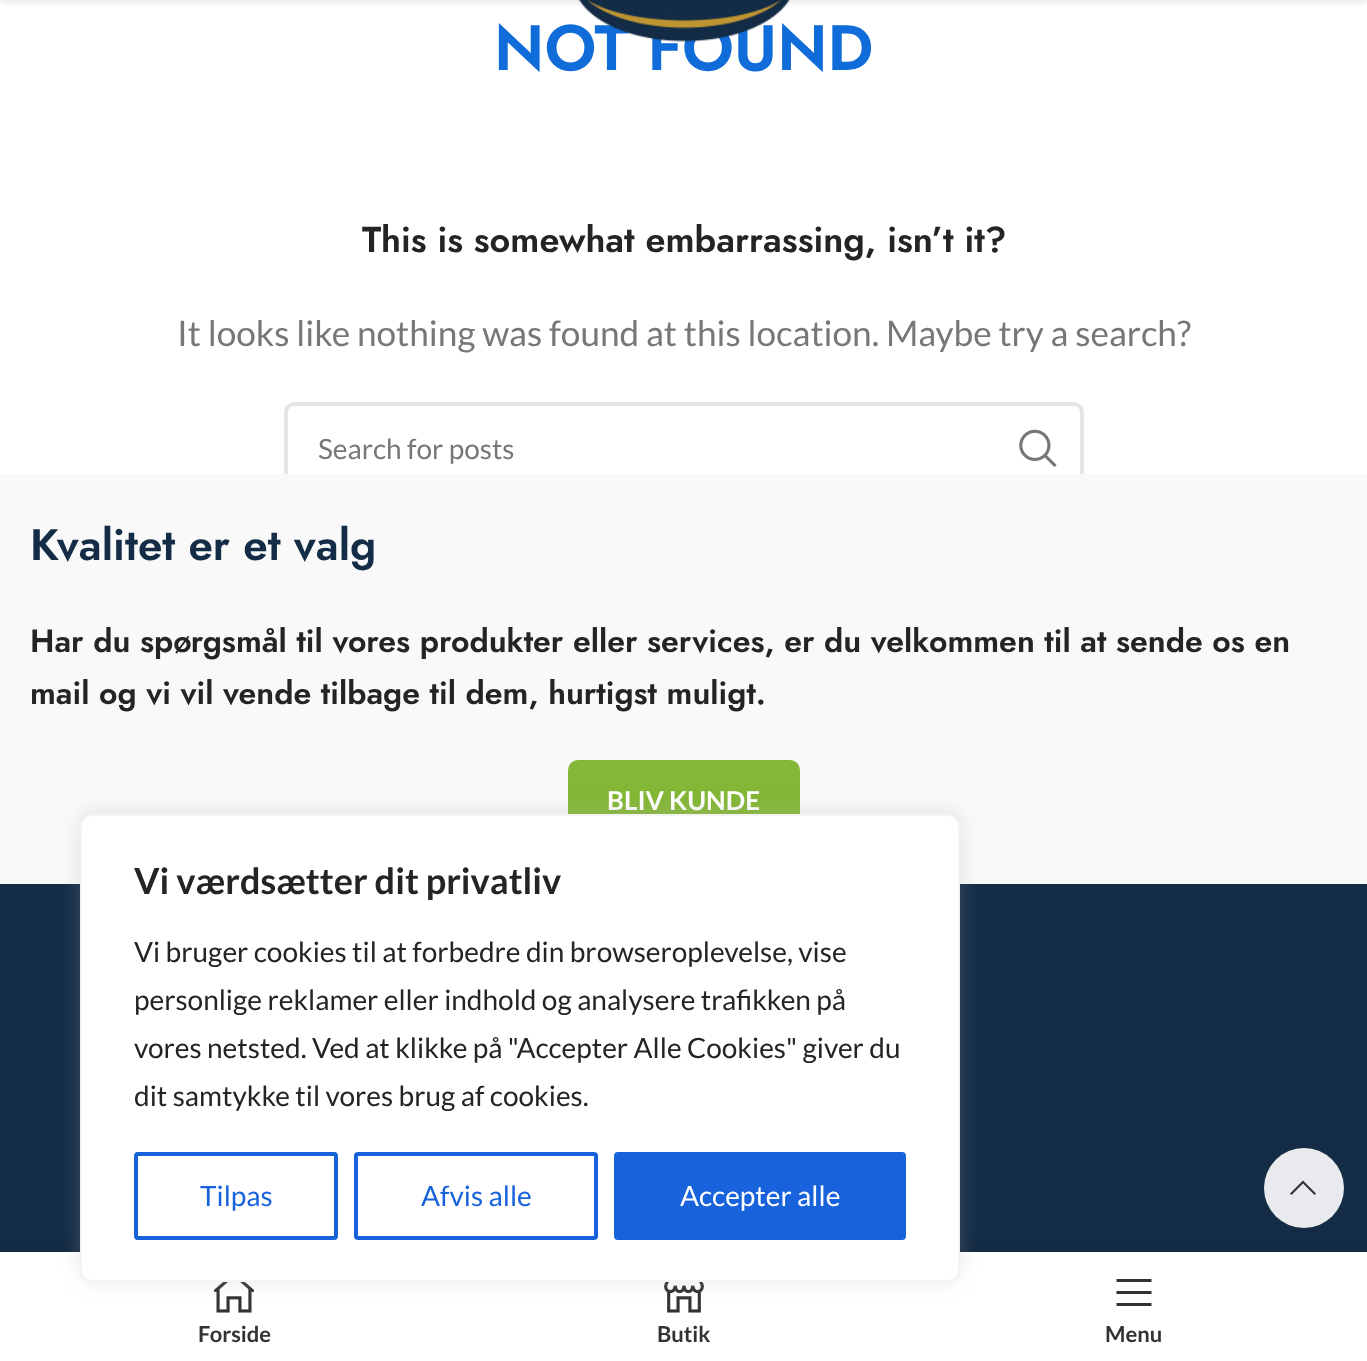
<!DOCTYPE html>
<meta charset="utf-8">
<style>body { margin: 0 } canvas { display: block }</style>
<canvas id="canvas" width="1367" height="1361"></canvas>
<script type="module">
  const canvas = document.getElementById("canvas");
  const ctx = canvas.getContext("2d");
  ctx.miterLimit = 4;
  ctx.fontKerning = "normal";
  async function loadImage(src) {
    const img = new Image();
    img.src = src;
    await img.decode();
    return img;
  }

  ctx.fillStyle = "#ffffff";
  ctx.fillRect(0, 0, 1367, 1361);
  ctx.fillStyle = "rgba(0, 0, 0, 0.1)";
  ctx.filter = "blur(3px)";
  ctx.beginPath();
  ctx.rect(0, -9, 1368, 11);
  ctx.fill();
  ctx.filter = "none";
  ctx.font = "600 64px Jost";
  ctx.fillStyle = "#106cd8";
  ctx.fillText("NOT FOUND", 494, 70);
  ctx.drawImage(await loadImage("img1.png"), 578, 0, 212, 42);
  ctx.font = "600 36px Jost";
  ctx.fillStyle = "#242424";
  ctx.fillText("This is somewhat embarrassing, isn’t it?", 362, 252);
  ctx.font = "35.2px Lato";
  ctx.fillStyle = "#777777";
  ctx.fillText("It looks like nothing was found at this location. Maybe try a search?", 177, 346);
  ctx.beginPath();
  ctx.roundRect(286, 404, 796, 88, 8);
  ctx.strokeStyle = "rgba(0, 0, 0, 0.1)";
  ctx.lineWidth = 4;
  ctx.stroke();
  ctx.font = "28px Lato";
  ctx.fillText("Search for posts", 318, 459);
  ctx.drawImage(await loadImage("img2.png"), 1019, 429, 38, 38);
  ctx.fillStyle = "#f9f9f9";
  ctx.fillRect(0, 474, 1367, 410);
  ctx.font = "600 44px Jost";
  ctx.fillStyle = "#142c46";
  ctx.fillText("Kvalitet er et valg", 30, 560);
  ctx.font = "600 32px Jost";
  ctx.fillStyle = "#242424";
  ctx.fillText("Har du spørgsmål til vores produkter eller services, er du velkommen til at sende os en", 30, 652);
  ctx.fillText("mail og vi vil vende tilbage til dem, hurtigst muligt.", 30, 704);
  ctx.fillStyle = "#83b735";
  ctx.beginPath();
  ctx.roundRect(568, 760, 232, 84, 10);
  ctx.fill();
  ctx.font = "bold 26px Lato";
  ctx.fillStyle = "#ffffff";
  ctx.fillText("BLIV KUNDE", 607, 810);
  ctx.fillStyle = "#142c46";
  ctx.fillRect(0, 884, 1367, 368);
  ctx.fillStyle = "rgba(255, 255, 255, 0.9)";
  ctx.beginPath();
  ctx.arc(1304, 1188, 40, 0, Math.PI * 2);
  ctx.fill();
  ctx.fillStyle = "rgba(0, 0, 0, 0.12)";
  ctx.filter = "blur(9px)";
  ctx.beginPath();
  ctx.rect(0, 1252, 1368, 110);
  ctx.fill();
  ctx.filter = "none";
  ctx.fillStyle = "#ffffff";
  ctx.fillRect(0, 1252, 1367, 109);
  ctx.drawImage(await loadImage("img3.png"), 214, 1282, 40, 31);
  ctx.drawImage(await loadImage("img4.png"), 664, 1282, 40, 31);
  ctx.fillStyle = "rgba(172, 171, 171, 0.3)";
  ctx.filter = "blur(10px)";
  ctx.beginPath();
  ctx.roundRect(80, 812, 880, 468, 12);
  ctx.fill();
  ctx.filter = "none";
  ctx.fillStyle = "#ffffff";
  ctx.beginPath();
  ctx.roundRect(81, 815, 878, 466, 11);
  ctx.fill();
  ctx.strokeStyle = "#f4f4f4";
  ctx.lineWidth = 2;
  ctx.stroke();
  ctx.font = "bold 36px Lato";
  ctx.fillStyle = "#242424";
  ctx.fillText("Vi værdsætter dit privatliv", 134, 894);
  ctx.font = "28px Lato";
  ctx.fillText("Vi bruger cookies til at forbedre din browseroplevelse, vise", 134, 962);
  ctx.fillText("personlige reklamer eller indhold og analysere trafikken på", 134, 1010);
  ctx.fillText("vores netsted. Ved at klikke på \"Accepter Alle Cookies\" giver du", 134, 1058);
  ctx.fillText("dit samtykke til vores brug af cookies.", 134, 1106);
  ctx.beginPath();
  ctx.roundRect(136, 1154, 200, 84, 2);
  ctx.strokeStyle = "#1863dc";
  ctx.lineWidth = 4;
  ctx.stroke();
  ctx.fillStyle = "#1863dc";
  ctx.fillText("Tilpas", 200, 1206);
  ctx.beginPath();
  ctx.roundRect(356, 1154, 240, 84, 2);
  ctx.stroke();
  ctx.fillText("Afvis alle", 421, 1206);
  ctx.beginPath();
  ctx.roundRect(616, 1154, 288, 84, 2);
  ctx.fill();
  ctx.stroke();
  ctx.fillStyle = "#ffffff";
  ctx.fillText("Accepter alle", 680, 1206);
  ctx.fillStyle = "#333333";
  ctx.beginPath();
  ctx.moveTo(1314.5, 1195);
  ctx.lineTo(1316, 1193.5);
  ctx.lineTo(1303, 1180.5);
  ctx.lineTo(1290, 1193.5);
  ctx.lineTo(1291.5, 1195);
  ctx.lineTo(1303, 1183.5);
  ctx.closePath();
  ctx.fill();
  ctx.font = "bold 22px Lato";
  ctx.fillText("Forside", 198, 1342);
  ctx.fillText("Butik", 657, 1342);
  ctx.beginPath();
  ctx.moveTo(1116.5, 1282);
  ctx.lineTo(1151.5, 1282);
  ctx.lineTo(1151.5, 1279);
  ctx.lineTo(1116.5, 1279);
  ctx.closePath();
  ctx.moveTo(1116.5, 1294);
  ctx.lineTo(1151.5, 1294);
  ctx.lineTo(1151.5, 1291);
  ctx.lineTo(1116.5, 1291);
  ctx.closePath();
  ctx.moveTo(1116.5, 1306);
  ctx.lineTo(1151.5, 1306);
  ctx.lineTo(1151.5, 1303);
  ctx.lineTo(1116.5, 1303);
  ctx.closePath();
  ctx.fill();
  ctx.fillText("Menu", 1105, 1342);
</script>
